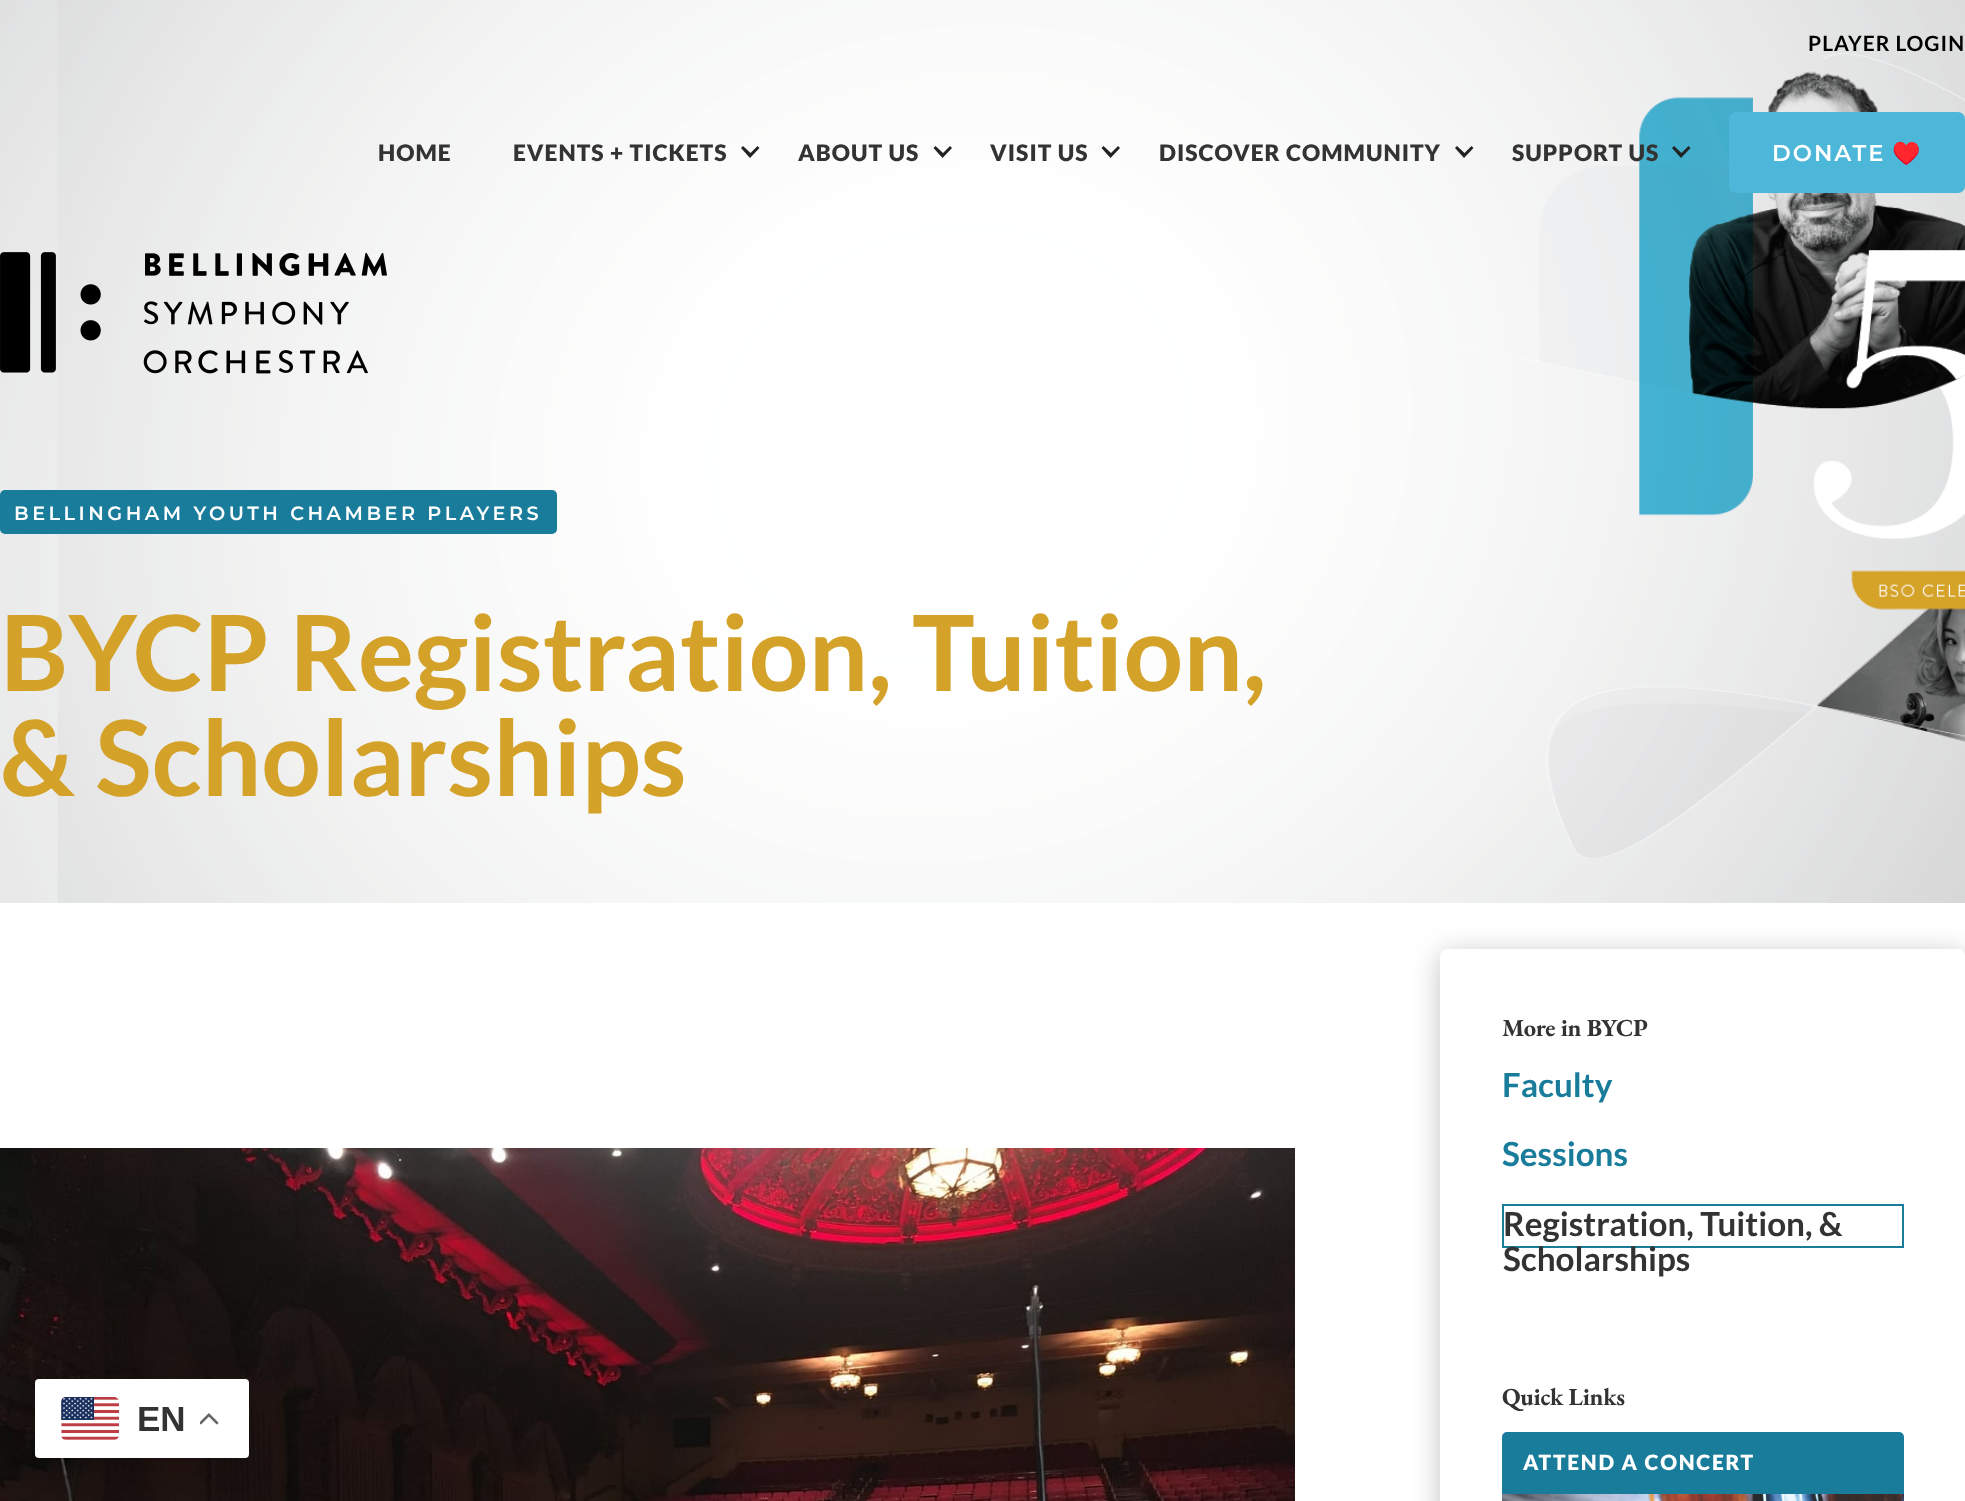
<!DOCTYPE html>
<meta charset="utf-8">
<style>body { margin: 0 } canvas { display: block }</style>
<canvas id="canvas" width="1965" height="1501"></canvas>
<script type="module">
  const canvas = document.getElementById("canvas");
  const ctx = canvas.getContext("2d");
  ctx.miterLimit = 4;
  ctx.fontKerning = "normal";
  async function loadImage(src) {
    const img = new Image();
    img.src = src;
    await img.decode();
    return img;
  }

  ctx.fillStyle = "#ffffff";
  ctx.fillRect(0, 0, 1965, 1501);
  ctx.drawImage(await loadImage("img1.png"), 0, 0, 1965, 903);
  ctx.letterSpacing = "1px";
  ctx.font = "bold 21px Lato";
  ctx.fillStyle = "#000000";
  ctx.fillText("PLAYER LOGIN", 1808, 51);
  ctx.font = "900 22.75px Lato";
  ctx.fillStyle = "#333333";
  ctx.fillText("HOME", 378, 161);
  ctx.fillText("EVENTS + TICKETS", 513, 161);
  ctx.fillStyle = "#222222";
  ctx.beginPath();
  ctx.moveTo(757.5, 146);
  ctx.lineTo(750.5, 153);
  ctx.lineTo(743, 146);
  ctx.lineTo(741, 148);
  ctx.lineTo(750, 158);
  ctx.lineTo(759.5, 148);
  ctx.closePath();
  ctx.fill();
  ctx.fillStyle = "#333333";
  ctx.fillText("ABOUT US", 798, 161);
  ctx.fillStyle = "#222222";
  ctx.beginPath();
  ctx.moveTo(950, 146);
  ctx.lineTo(943, 153);
  ctx.lineTo(935.5, 146);
  ctx.lineTo(933.5, 148);
  ctx.lineTo(942.5, 158);
  ctx.lineTo(952, 148);
  ctx.closePath();
  ctx.fill();
  ctx.fillStyle = "#333333";
  ctx.fillText("VISIT US", 990, 161);
  ctx.fillStyle = "#222222";
  ctx.beginPath();
  ctx.moveTo(1118, 146);
  ctx.lineTo(1111, 153);
  ctx.lineTo(1103.5, 146);
  ctx.lineTo(1101.5, 148);
  ctx.lineTo(1110.5, 158);
  ctx.lineTo(1120, 148);
  ctx.closePath();
  ctx.fill();
  ctx.fillStyle = "#333333";
  ctx.fillText("DISCOVER COMMUNITY", 1159, 161);
  ctx.fillStyle = "#222222";
  ctx.beginPath();
  ctx.moveTo(1471.5, 146);
  ctx.lineTo(1464.5, 153);
  ctx.lineTo(1457, 146);
  ctx.lineTo(1455, 148);
  ctx.lineTo(1464, 158);
  ctx.lineTo(1473.5, 148);
  ctx.closePath();
  ctx.fill();
  ctx.fillStyle = "#333333";
  ctx.fillText("SUPPORT US", 1512, 161);
  ctx.fillStyle = "#222222";
  ctx.beginPath();
  ctx.moveTo(1688.5, 146);
  ctx.lineTo(1681.5, 153);
  ctx.lineTo(1674, 146);
  ctx.lineTo(1672, 148);
  ctx.lineTo(1681, 158);
  ctx.lineTo(1690.5, 148);
  ctx.closePath();
  ctx.fill();
  ctx.fillStyle = "#4cb7d8";
  ctx.beginPath();
  ctx.roundRect(1729, 112, 236, 81, 7);
  ctx.fill();
  ctx.letterSpacing = "2px";
  ctx.font = "600 22.75px Montserrat";
  ctx.fillStyle = "#ffffff";
  ctx.fillText("DONATE", 1772, 161);
  ctx.font = "bold 22.75px Noto Color Emoji";
  ctx.fillText("♥️", 1892, 161);
  ctx.drawImage(await loadImage("img2.png"), 0, 252, 387, 122);
  ctx.fillStyle = "#197c9b";
  ctx.beginPath();
  ctx.roundRect(0, 490, 557, 44, 5);
  ctx.fill();
  ctx.letterSpacing = "3.5px";
  ctx.font = "600 19.25px Montserrat";
  ctx.fillStyle = "#ffffff";
  ctx.fillText("BELLINGHAM YOUTH CHAMBER PLAYERS", 14, 520);
  ctx.letterSpacing = "0px";
  ctx.font = "bold 105px Lato";
  ctx.fillStyle = "#d4a129";
  ctx.fillText("BYCP Registration, Tuition,", 0, 691);
  ctx.fillText("& Scholarships", 0, 796);
  ctx.drawImage(await loadImage("img5.png"), 0, 1148, 1295, 353);
  ctx.fillStyle = "rgba(0, 0, 0, 0.15)";
  ctx.filter = "blur(13px)";
  ctx.beginPath();
  ctx.roundRect(35, 1388, 214, 79, 4);
  ctx.fill();
  ctx.filter = "none";
  ctx.fillStyle = "#ffffff";
  ctx.beginPath();
  ctx.roundRect(35, 1379, 214, 79, 4);
  ctx.fill();
  ctx.drawImage(await loadImage("img3.png"), 61, 1397, 58, 43);
  ctx.font = "bold 35px Liberation Sans";
  ctx.fillStyle = "#333333";
  ctx.fillText("EN", 137, 1431);
  ctx.drawImage(await loadImage("img4.png"), 200, 1413, 19, 12);
  ctx.fillStyle = "rgba(0, 0, 0, 0.24)";
  ctx.filter = "blur(14px)";
  ctx.beginPath();
  ctx.roundRect(1440, 954, 525, 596, 7);
  ctx.fill();
  ctx.filter = "none";
  ctx.fillStyle = "#ffffff";
  ctx.beginPath();
  ctx.roundRect(1440, 949, 525, 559, 7);
  ctx.fill();
  ctx.letterSpacing = "-0.3px";
  ctx.font = "bold 24.5px EB Garamond";
  ctx.fillStyle = "#333333";
  ctx.fillText("More in BYCP", 1502, 1036);
  ctx.letterSpacing = "0px";
  ctx.font = "bold 33.25px Lato";
  ctx.fillStyle = "#197c9b";
  ctx.fillText("Faculty", 1502, 1097);
  ctx.fillText("Sessions", 1502, 1166);
  ctx.strokeStyle = "#197c9b";
  ctx.lineWidth = 2;
  ctx.strokeRect(1503, 1205, 400, 42);
  ctx.fillStyle = "#333333";
  ctx.fillText("Registration, Tuition, &", 1503, 1236);
  ctx.fillText("Scholarships", 1503, 1271);
  ctx.letterSpacing = "-0.3px";
  ctx.font = "bold 24.5px EB Garamond";
  ctx.fillText("Quick Links", 1502, 1405);
  ctx.fillStyle = "#197c9b";
  ctx.beginPath();
  ctx.roundRect(1502, 1432, 402, 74, 5);
  ctx.fill();
  ctx.letterSpacing = "1.75px";
  ctx.font = "900 21px Lato";
  ctx.fillStyle = "#ffffff";
  ctx.fillText("ATTEND A CONCERT", 1523, 1470);
  ctx.drawImage(await loadImage("img6.png"), 1502, 1494, 402, 7);
</script>
